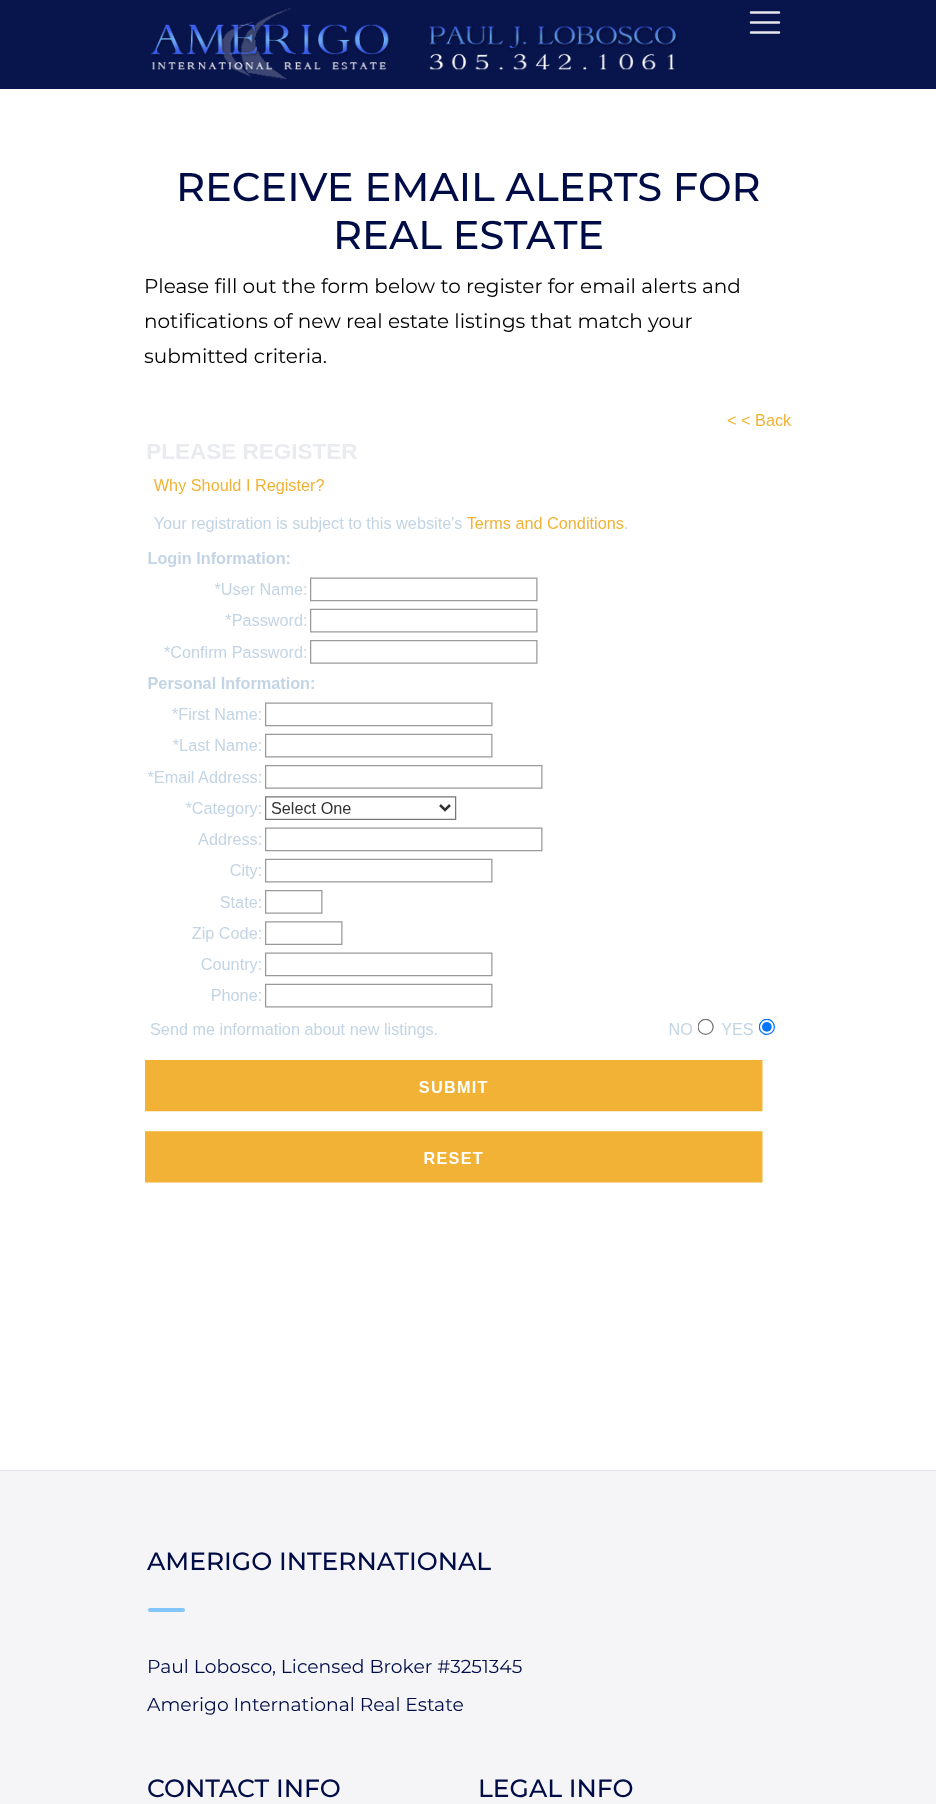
<!DOCTYPE html>
<meta charset="utf-8">
<style>body { margin: 0 } canvas { display: block }</style>
<canvas id="canvas" width="936" height="1804"></canvas>
<script type="module">
  const canvas = document.getElementById("canvas");
  const ctx = canvas.getContext("2d");
  ctx.miterLimit = 4;
  ctx.fontKerning = "normal";
  async function loadImage(src) {
    const img = new Image();
    img.src = src;
    await img.decode();
    return img;
  }

  ctx.fillStyle = "#ffffff";
  ctx.fillRect(0, 0, 936, 1804);
  ctx.fillStyle = "#08144c";
  ctx.fillRect(0, 0, 936, 89);
  ctx.drawImage(await loadImage("img1.png"), 151, 8, 527, 72);
  ctx.beginPath();
  ctx.moveTo(751, 12.5);
  ctx.lineTo(779, 12.5);
  ctx.moveTo(751, 22.5);
  ctx.lineTo(779, 22.5);
  ctx.moveTo(751, 32.5);
  ctx.lineTo(779, 32.5);
  ctx.strokeStyle = "#e6e8ed";
  ctx.lineWidth = 2.5;
  ctx.lineCap = "round";
  ctx.stroke();
  ctx.font = "500 40px Montserrat";
  ctx.fillStyle = "#000c46";
  ctx.fillText("RECEIVE EMAIL ALERTS FOR", 176, 201);
  ctx.fillText("REAL ESTATE", 333, 249);
  ctx.font = "20px Montserrat";
  ctx.fillStyle = "#000000";
  ctx.fillText("Please fill out the form below to register for email alerts and", 144, 293);
  ctx.fillText("notifications of new real estate listings that match your", 144, 328);
  ctx.fillText("submitted criteria.", 144, 363);
  ctx.drawImage(await loadImage("img2.png"), 145, 414, 646, 769);
  ctx.fillStyle = "#f5f5f7";
  ctx.fillRect(0, 1471, 936, 333);
  ctx.fillStyle = "#e3e4eb";
  ctx.fillRect(0, 1470, 936, 1);
  ctx.font = "500 25px Montserrat";
  ctx.fillStyle = "#000c46";
  ctx.fillText("AMERIGO INTERNATIONAL", 147, 1570);
  ctx.fillStyle = "#82c6fb";
  ctx.beginPath();
  ctx.roundRect(148, 1608, 37, 4, 2);
  ctx.fill();
  ctx.font = "18.75px Montserrat";
  ctx.fillStyle = "#000c46";
  ctx.fillText("Paul Lobosco, Licensed Broker #3251345", 147, 1673);
  ctx.fillText("Amerigo International Real Estate", 147, 1711);
  ctx.font = "500 25px Montserrat";
  ctx.fillText("CONTACT INFO", 147, 1797);
  ctx.fillText("LEGAL INFO", 478, 1797);
</script>
